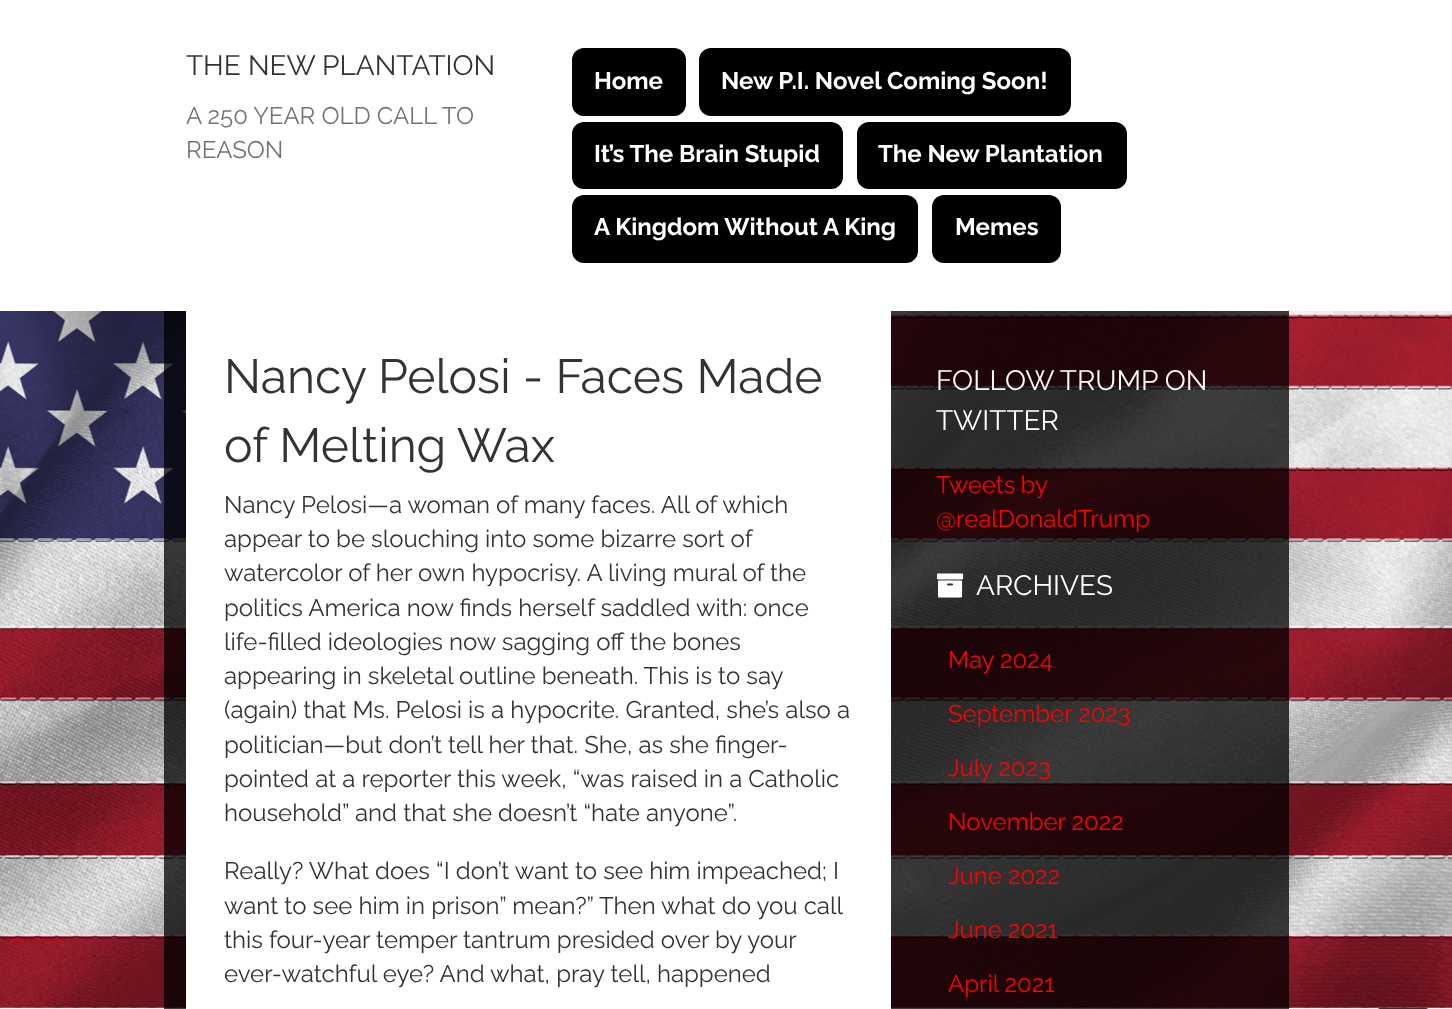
<!DOCTYPE html>
<meta charset="utf-8">
<style>body { margin: 0 } canvas { display: block }</style>
<canvas id="canvas" width="1452" height="1009"></canvas>
<script type="module">
  const canvas = document.getElementById("canvas");
  const ctx = canvas.getContext("2d");
  ctx.miterLimit = 4;
  ctx.fontKerning = "normal";
  async function loadImage(src) {
    const img = new Image();
    img.src = src;
    await img.decode();
    return img;
  }

  ctx.fillStyle = "#ffffff";
  ctx.fillRect(0, 0, 1452, 1009);
  ctx.drawImage(await loadImage("img1.png"), 0, 311, 1452, 698);
  ctx.font = "28px Raleway";
  ctx.fillStyle = "#333333";
  ctx.fillText("THE NEW PLANTATION", 186, 75);
  ctx.font = "24px Raleway";
  ctx.fillStyle = "#737373";
  ctx.fillText("A 250 YEAR OLD CALL TO", 186, 124);
  ctx.fillText("REASON", 186, 158);
  ctx.fillStyle = "#000000";
  ctx.beginPath();
  ctx.roundRect(570.5, 46.5, 117, 71, 13.5);
  ctx.fill();
  ctx.strokeStyle = "#ffffff";
  ctx.lineWidth = 3;
  ctx.stroke();
  ctx.font = "bold 24px Raleway";
  ctx.fillStyle = "#ffffff";
  ctx.fillText("Home", 594, 89);
  ctx.fillStyle = "#000000";
  ctx.beginPath();
  ctx.roundRect(697.5, 46.5, 375, 71, 13.5);
  ctx.fill();
  ctx.stroke();
  ctx.fillStyle = "#ffffff";
  ctx.fillText("New P.I. Novel Coming Soon!", 721, 89);
  ctx.fillStyle = "#000000";
  ctx.beginPath();
  ctx.roundRect(570.5, 120.5, 274, 70, 13.5);
  ctx.fill();
  ctx.stroke();
  ctx.fillStyle = "#ffffff";
  ctx.fillText("It’s The Brain Stupid", 594, 162);
  ctx.fillStyle = "#000000";
  ctx.beginPath();
  ctx.roundRect(855.5, 120.5, 273, 70, 13.5);
  ctx.fill();
  ctx.stroke();
  ctx.fillStyle = "#ffffff";
  ctx.fillText("The New Plantation", 878, 162);
  ctx.fillStyle = "#000000";
  ctx.beginPath();
  ctx.roundRect(570.5, 193.5, 349, 71, 13.5);
  ctx.fill();
  ctx.stroke();
  ctx.fillStyle = "#ffffff";
  ctx.fillText("A Kingdom Without A King", 594, 235);
  ctx.fillStyle = "#000000";
  ctx.beginPath();
  ctx.roundRect(930.5, 193.5, 132, 71, 13.5);
  ctx.fill();
  ctx.stroke();
  ctx.fillStyle = "#ffffff";
  ctx.fillText("Memes", 955, 235);
  ctx.fillStyle = "rgba(0, 0, 0, 0.75)";
  ctx.fillRect(164, 311, 1125, 698);
  ctx.fillStyle = "#ffffff";
  ctx.fillRect(186, 311, 705, 698);
  ctx.font = "48px Raleway";
  ctx.fillStyle = "#333333";
  ctx.fillText("Nancy Pelosi - Faces Made", 224, 393);
  ctx.fillText("of Melting Wax", 224, 462);
  ctx.font = "24px Raleway";
  ctx.fillText("Nancy Pelosi—a woman of many faces. All of which", 224, 513);
  ctx.fillText("appear to be slouching into some bizarre sort of", 224, 547);
  ctx.fillText("watercolor of her own hypocrisy. A living mural of the", 224, 581);
  ctx.fillText("politics America now finds herself saddled with: once", 224, 616);
  ctx.fillText("life-filled ideologies now sagging off the bones", 224, 650);
  ctx.fillText("appearing in skeletal outline beneath. This is to say", 224, 684);
  ctx.fillText("(again) that Ms. Pelosi is a hypocrite. Granted, she’s also a", 224, 718);
  ctx.fillText("politician—but don’t tell her that. She, as she finger-", 224, 753);
  ctx.fillText("pointed at a reporter this week, “was raised in a Catholic", 224, 787);
  ctx.fillText("household” and that she doesn’t “hate anyone”.", 224, 821);
  ctx.fillText("Really? What does “I don’t want to see him impeached; I", 224, 879);
  ctx.fillText("want to see him in prison” mean?” Then what do you call", 224, 914);
  ctx.fillText("this four-year temper tantrum presided over by your", 224, 948);
  ctx.fillText("ever-watchful eye? And what, pray tell, happened", 224, 982);
  ctx.font = "28px Raleway";
  ctx.fillStyle = "#ffffff";
  ctx.fillText("FOLLOW TRUMP ON", 936, 390);
  ctx.fillText("TWITTER", 936, 430);
  ctx.wordSpacing = "-1px";
  ctx.font = "24px Raleway";
  ctx.fillStyle = "#ff0000";
  ctx.fillText("Tweets by", 936, 493);
  ctx.wordSpacing = "0px";
  ctx.fillText("@realDonaldTrump", 936, 527);
  ctx.drawImage(await loadImage("img2.png"), 937, 573, 27, 25);
  ctx.font = "28px Raleway";
  ctx.fillStyle = "#ffffff";
  ctx.fillText("ARCHIVES", 976, 595);
  ctx.font = "24px Raleway";
  ctx.fillStyle = "#ff0000";
  ctx.fillText("May 2024", 948, 668);
  ctx.fillText("September 2023", 948, 722);
  ctx.fillText("July 2023", 948, 776);
  ctx.fillText("November 2022", 948, 830);
  ctx.fillText("June 2022", 948, 884);
  ctx.fillText("June 2021", 948, 938);
  ctx.fillText("April 2021", 948, 992);
  ctx.beginPath();
  ctx.roundRect(1377, 1009, 52, 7, 5);
  ctx.strokeStyle = "#333333";
  ctx.lineWidth = 2;
  ctx.stroke();
</script>
